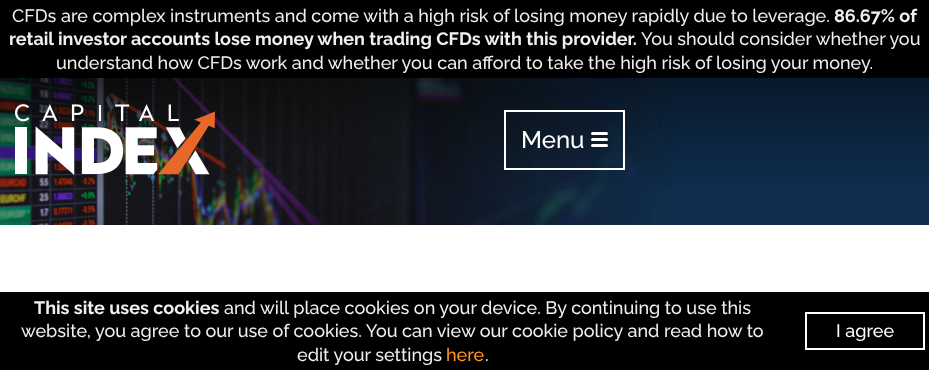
<!DOCTYPE html>
<meta charset="utf-8">
<style>body { margin: 0 } canvas { display: block }</style>
<canvas id="canvas" width="929" height="370"></canvas>
<script type="module">
  const canvas = document.getElementById("canvas");
  const ctx = canvas.getContext("2d");
  ctx.miterLimit = 4;
  ctx.fontKerning = "normal";
  async function loadImage(src) {
    const img = new Image();
    img.src = src;
    await img.decode();
    return img;
  }
  let gradient;

  ctx.fillStyle = "#ffffff";
  ctx.fillRect(0, 0, 929, 370);
  ctx.fillStyle = "#000000";
  ctx.fillRect(0, 0, 929, 78);
  ctx.font = "500 18px Raleway";
  ctx.fillStyle = "#f0f0f0";
  ctx.fillText("CFDs are complex instruments and come with a high risk of losing money rapidly due to leverage.", 12, 22);
  ctx.font = "bold 18px Raleway";
  ctx.fillText("86.67% of", 834, 22);
  ctx.fillText("retail investor accounts lose money when trading CFDs with this provider.", 9, 45);
  ctx.font = "500 18px Raleway";
  ctx.fillText("You should consider whether you", 641, 45);
  ctx.fillText("understand how CFDs work and whether you can afford to take the high risk of losing your money.", 56, 69);
  ctx.fillStyle = "#0f2e50";
  ctx.fillRect(674, 78, 255, 147);
  ctx.drawImage(await loadImage("img1.png"), 0, 78, 674, 147);
  gradient = ctx.createLinearGradient(465, -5, 465, 195);
  gradient.addColorStop(0, "rgba(0, 0, 0, 0.8)");
  gradient.addColorStop(1, "rgba(0, 0, 0, 0)");
  ctx.fillStyle = gradient;
  ctx.fillRect(0, 78, 929, 112);
  ctx.drawImage(await loadImage("img2.png"), 15, 104, 200, 71);
  ctx.strokeStyle = "#ffffff";
  ctx.lineWidth = 2;
  ctx.strokeRect(505, 111, 119, 58);
  ctx.font = "500 24px Raleway";
  ctx.fillStyle = "#ffffff";
  ctx.fillText("Menu", 521, 148);
  ctx.beginPath();
  ctx.roundRect(591, 132, 17, 3, 1.5);
  ctx.fill();
  ctx.beginPath();
  ctx.roundRect(591, 138, 17, 3, 1.5);
  ctx.fill();
  ctx.beginPath();
  ctx.roundRect(591, 144, 17, 3, 1.5);
  ctx.fill();
  ctx.fillStyle = "#000000";
  ctx.fillRect(0, 292, 929, 78);
  ctx.font = "bold 18px Raleway";
  ctx.fillStyle = "#f0f0f0";
  ctx.fillText("This site uses cookies", 34, 314);
  ctx.font = "500 18px Raleway";
  ctx.fillText("and will place cookies on your device. By continuing to use this", 224, 314);
  ctx.fillText("website, you agree to our use of cookies. You can view our cookie policy and read how to", 21, 337);
  ctx.fillText("edit your settings", 297, 361);
  ctx.fillStyle = "#ff9620";
  ctx.fillText("here", 446, 361);
  ctx.fillStyle = "#f0f0f0";
  ctx.fillText(".", 485, 361);
  ctx.strokeRect(806, 313, 118, 36);
  ctx.fillStyle = "#ffffff";
  ctx.fillText("I agree", 836, 337);
</script>
